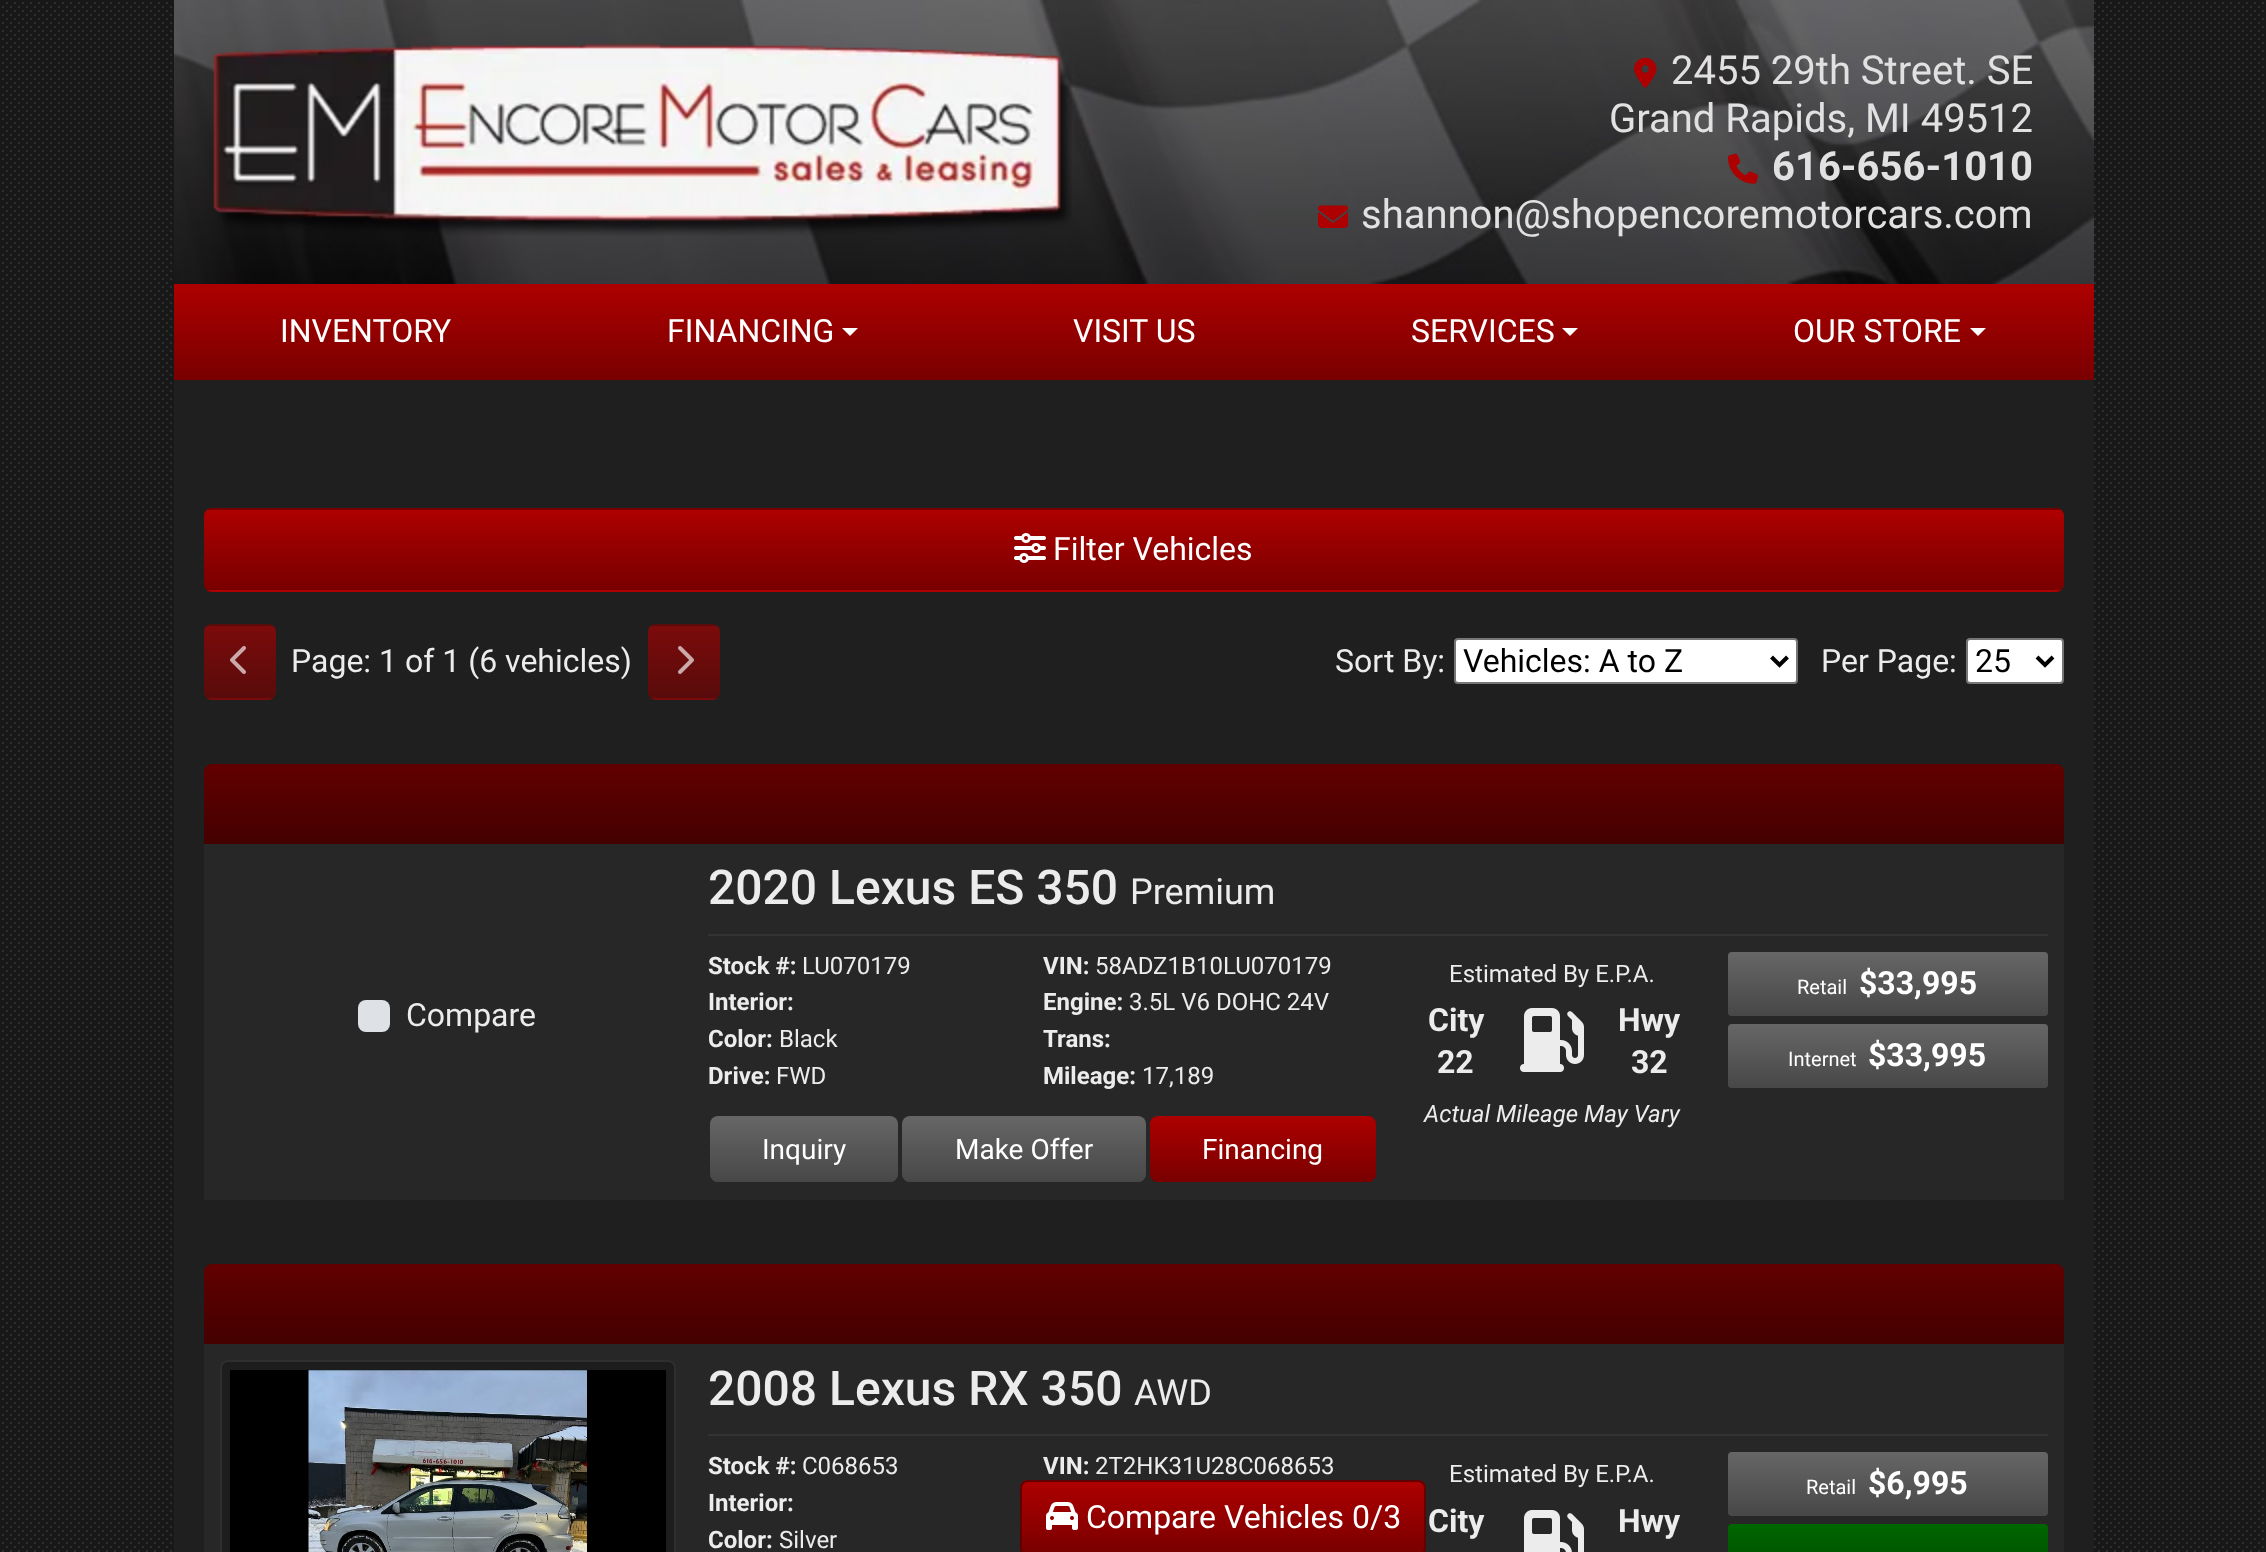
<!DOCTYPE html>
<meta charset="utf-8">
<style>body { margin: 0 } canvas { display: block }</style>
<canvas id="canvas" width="2266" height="1552"></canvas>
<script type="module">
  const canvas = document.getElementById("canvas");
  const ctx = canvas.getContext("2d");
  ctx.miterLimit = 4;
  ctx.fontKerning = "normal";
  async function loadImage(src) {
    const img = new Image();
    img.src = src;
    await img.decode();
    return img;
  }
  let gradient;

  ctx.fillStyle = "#181818";
  ctx.fillRect(0, 0, 2266, 1552);
  ctx.drawImage(await loadImage("img1.png"), 2, 2, 2262, 1550);
  ctx.drawImage(await loadImage("img2.png"), 174, 0, 1920, 284);
  ctx.drawImage(await loadImage("img3.png"), 213, 43, 859, 193);
  ctx.drawImage(await loadImage("img4.png"), 1634, 57, 23, 31);
  ctx.font = "40px Roboto";
  ctx.fillStyle = "#e1e1e1";
  ctx.fillText("2455 29th Street. SE", 1671, 84);
  ctx.fillText("Grand Rapids, MI 49512", 1609, 132);
  ctx.drawImage(await loadImage("img5.png"), 1728, 153, 30, 31);
  ctx.font = "bold 40px Roboto";
  ctx.fillText("616-656-1010", 1772, 180);
  ctx.drawImage(await loadImage("img6.png"), 1318, 205, 30, 23);
  ctx.font = "40px Roboto";
  ctx.fillText("shannon@shopencoremotorcars.com", 1361, 228);
  gradient = ctx.createLinearGradient(1134, 284, 1134, 380);
  gradient.addColorStop(0, "#ad0000");
  gradient.addColorStop(1, "#790000");
  ctx.fillStyle = gradient;
  ctx.fillRect(174, 284, 1920, 96);
  ctx.font = "32px Roboto";
  ctx.fillStyle = "#ffffff";
  ctx.fillText("INVENTORY", 280, 342);
  ctx.fillText("FINANCING", 667, 342);
  ctx.beginPath();
  ctx.moveTo(842, 328);
  ctx.lineTo(858, 328);
  ctx.lineTo(850, 336);
  ctx.closePath();
  ctx.fill();
  ctx.fillText("VISIT US", 1073, 342);
  ctx.fillText("SERVICES", 1411, 342);
  ctx.beginPath();
  ctx.moveTo(1562, 328);
  ctx.lineTo(1578, 328);
  ctx.lineTo(1570, 336);
  ctx.closePath();
  ctx.fill();
  ctx.fillText("OUR STORE", 1793, 342);
  ctx.beginPath();
  ctx.moveTo(1970, 328);
  ctx.lineTo(1986, 328);
  ctx.lineTo(1978, 336);
  ctx.closePath();
  ctx.fill();
  ctx.fillStyle = "rgba(32, 32, 32, 0.9)";
  ctx.fillRect(174, 380, 1920, 1172);
  ctx.fillStyle = "#ad0000";
  ctx.beginPath();
  ctx.roundRect(204, 508, 1860, 84, 8);
  ctx.fill();
  ctx.save();
  ctx.beginPath();
  ctx.roundRect(204, 508, 1860, 84, 8);
  ctx.clip();
  gradient = ctx.createLinearGradient(1134, 430, 1134, 510);
  gradient.addColorStop(0, "rgba(0, 0, 0, 0)");
  gradient.addColorStop(1, "rgba(0, 0, 0, 0.3)");
  ctx.fillStyle = gradient;
  ctx.fillRect(204, 508, 1860, 2);
  gradient = ctx.createLinearGradient(1134, 510, 1134, 590);
  gradient.addColorStop(0, "rgba(0, 0, 0, 0)");
  gradient.addColorStop(1, "rgba(0, 0, 0, 0.3)");
  ctx.fillStyle = gradient;
  ctx.fillRect(204, 516, 1860, 74);
  ctx.restore();
  ctx.drawImage(await loadImage("img7.png"), 1014, 533, 32, 30);
  ctx.fillStyle = "#ffffff";
  ctx.fillText("Filter Vehicles", 1053, 560);
  ctx.fillStyle = "#7b0b0b";
  ctx.beginPath();
  ctx.roundRect(204, 624, 72, 76, 8);
  ctx.fill();
  ctx.save();
  ctx.beginPath();
  ctx.roundRect(204, 624, 72, 76, 8);
  ctx.clip();
  gradient = ctx.createLinearGradient(240, 554, 240, 626);
  gradient.addColorStop(0, "rgba(11, 11, 11, 0)");
  gradient.addColorStop(1, "rgba(11, 11, 11, 0.3)");
  ctx.fillStyle = gradient;
  ctx.fillRect(204, 624, 72, 2);
  gradient = ctx.createLinearGradient(240, 626, 240, 698);
  gradient.addColorStop(0, "rgba(11, 11, 11, 0)");
  gradient.addColorStop(1, "rgba(11, 11, 11, 0.3)");
  ctx.fillStyle = gradient;
  ctx.fillRect(204, 631, 72, 67);
  ctx.restore();
  ctx.drawImage(await loadImage("img8.png"), 230, 646, 16, 28);
  ctx.fillStyle = "#ececec";
  ctx.fillText("Page: 1 of 1 (6 vehicles)", 291, 672);
  ctx.fillStyle = "#7b0b0b";
  ctx.beginPath();
  ctx.roundRect(648, 624, 72, 76, 8);
  ctx.fill();
  ctx.save();
  ctx.beginPath();
  ctx.roundRect(648, 624, 72, 76, 8);
  ctx.clip();
  gradient = ctx.createLinearGradient(684, 554, 684, 626);
  gradient.addColorStop(0, "rgba(11, 11, 11, 0)");
  gradient.addColorStop(1, "rgba(11, 11, 11, 0.3)");
  ctx.fillStyle = gradient;
  ctx.fillRect(648, 624, 72, 2);
  gradient = ctx.createLinearGradient(684, 626, 684, 698);
  gradient.addColorStop(0, "rgba(11, 11, 11, 0)");
  gradient.addColorStop(1, "rgba(11, 11, 11, 0.3)");
  ctx.fillStyle = gradient;
  ctx.fillRect(648, 631, 72, 67);
  ctx.restore();
  ctx.drawImage(await loadImage("img9.png"), 678, 646, 16, 28);
  ctx.fillStyle = "#ececec";
  ctx.fillText("Sort By:", 1335, 672);
  ctx.fillStyle = "#ffffff";
  ctx.beginPath();
  ctx.roundRect(1455, 639, 342, 44, 3);
  ctx.fill();
  ctx.strokeStyle = "#767676";
  ctx.lineWidth = 2;
  ctx.stroke();
  ctx.beginPath();
  ctx.moveTo(1771.5, 657);
  ctx.lineTo(1779.5, 665);
  ctx.lineTo(1787.5, 657);
  ctx.strokeStyle = "#000000";
  ctx.lineWidth = 4;
  ctx.stroke();
  ctx.fillStyle = "#000000";
  ctx.fillText("Vehicles: A to Z", 1463, 672);
  ctx.fillStyle = "#ececec";
  ctx.fillText("Per Page:", 1821, 672);
  ctx.fillStyle = "#ffffff";
  ctx.beginPath();
  ctx.roundRect(1967, 639, 96, 44, 3);
  ctx.fill();
  ctx.strokeStyle = "#767676";
  ctx.lineWidth = 2;
  ctx.stroke();
  ctx.beginPath();
  ctx.moveTo(2037, 657);
  ctx.lineTo(2045, 665);
  ctx.lineTo(2053, 657);
  ctx.strokeStyle = "#000000";
  ctx.lineWidth = 4;
  ctx.stroke();
  ctx.fillStyle = "#000000";
  ctx.fillText("25", 1975, 672);
  ctx.fillStyle = "#610000";
  ctx.beginPath();
  ctx.roundRect(204, 764, 1860, 80, [8, 8, 0, 0]);
  ctx.fill();
  gradient = ctx.createLinearGradient(1134, 764, 1134, 844);
  gradient.addColorStop(0, "rgba(0, 0, 0, 0)");
  gradient.addColorStop(1, "rgba(0, 0, 0, 0.3)");
  ctx.fillStyle = gradient;
  ctx.fillRect(204, 771, 1860, 73);
  ctx.fillStyle = "#272727";
  ctx.fillRect(204, 844, 1860, 356);
  ctx.fillStyle = "#dee2e6";
  ctx.beginPath();
  ctx.roundRect(358, 1000, 32, 32, 8);
  ctx.fill();
  ctx.fillStyle = "#ececec";
  ctx.fillText("Compare", 406, 1026);
  ctx.fillStyle = "#333333";
  ctx.fillRect(708, 934, 1340, 2);
  ctx.font = "500 48px Roboto";
  ctx.fillStyle = "#ececec";
  ctx.fillText("2020 Lexus ES 350", 708, 904);
  ctx.font = "36px Roboto";
  ctx.fillText("Premium", 1130, 904);
  ctx.font = "bold 24px Roboto";
  ctx.fillText("Stock #:", 708, 974);
  ctx.font = "24px Roboto";
  ctx.fillText("LU070179", 802, 974);
  ctx.font = "bold 24px Roboto";
  ctx.fillText("Interior:", 708, 1010);
  ctx.fillText("Color:", 708, 1047);
  ctx.font = "24px Roboto";
  ctx.fillText("Black", 779, 1047);
  ctx.font = "bold 24px Roboto";
  ctx.fillText("Drive:", 708, 1084);
  ctx.font = "24px Roboto";
  ctx.fillText("FWD", 776, 1084);
  ctx.font = "bold 24px Roboto";
  ctx.fillText("VIN:", 1043, 974);
  ctx.font = "24px Roboto";
  ctx.fillText("58ADZ1B10LU070179", 1095, 974);
  ctx.font = "bold 24px Roboto";
  ctx.fillText("Engine:", 1043, 1010);
  ctx.font = "24px Roboto";
  ctx.fillText("3.5L V6 DOHC 24V", 1129, 1010);
  ctx.font = "bold 24px Roboto";
  ctx.fillText("Trans:", 1043, 1047);
  ctx.fillText("Mileage:", 1043, 1084);
  ctx.font = "24px Roboto";
  ctx.fillText("17,189", 1142, 1084);
  ctx.fillStyle = "#666666";
  ctx.beginPath();
  ctx.roundRect(710, 1116, 188, 66, 8);
  ctx.fill();
  gradient = ctx.createLinearGradient(804, 1116, 804, 1182);
  gradient.addColorStop(0, "rgba(0, 0, 0, 0)");
  gradient.addColorStop(1, "rgba(0, 0, 0, 0.3)");
  ctx.fillStyle = gradient;
  ctx.beginPath();
  ctx.roundRect(710, 1116, 188, 66, 8);
  ctx.fill();
  ctx.font = "28px Roboto";
  ctx.fillStyle = "#ffffff";
  ctx.fillText("Inquiry", 762, 1159);
  ctx.fillStyle = "#666666";
  ctx.beginPath();
  ctx.roundRect(902, 1116, 244, 66, 8);
  ctx.fill();
  gradient = ctx.createLinearGradient(1024, 1116, 1024, 1182);
  gradient.addColorStop(0, "rgba(0, 0, 0, 0)");
  gradient.addColorStop(1, "rgba(0, 0, 0, 0.3)");
  ctx.fillStyle = gradient;
  ctx.beginPath();
  ctx.roundRect(902, 1116, 244, 66, 8);
  ctx.fill();
  ctx.fillStyle = "#ffffff";
  ctx.fillText("Make Offer", 955, 1159);
  ctx.fillStyle = "#ad0000";
  ctx.beginPath();
  ctx.roundRect(1150, 1116, 226, 66, 8);
  ctx.fill();
  gradient = ctx.createLinearGradient(1263, 1116, 1263, 1182);
  gradient.addColorStop(0, "rgba(0, 0, 0, 0)");
  gradient.addColorStop(1, "rgba(0, 0, 0, 0.3)");
  ctx.fillStyle = gradient;
  ctx.beginPath();
  ctx.roundRect(1150, 1116, 226, 66, 8);
  ctx.fill();
  ctx.fillStyle = "#ffffff";
  ctx.fillText("Financing", 1202, 1159);
  ctx.font = "24px Roboto";
  ctx.fillStyle = "#ececec";
  ctx.fillText("Estimated By E.P.A.", 1449, 982);
  ctx.font = "bold 32px Roboto";
  ctx.fillText("City", 1428, 1031);
  ctx.fillText("22", 1437, 1073);
  ctx.drawImage(await loadImage("img10.png"), 1520, 1008, 64, 64);
  ctx.fillText("Hwy", 1618, 1031);
  ctx.fillText("32", 1631, 1073);
  ctx.font = "italic 24px Roboto";
  ctx.fillText("Actual Mileage May Vary", 1424, 1122);
  ctx.fillStyle = "#666666";
  ctx.beginPath();
  ctx.roundRect(1728, 952, 320, 64, 4);
  ctx.fill();
  gradient = ctx.createLinearGradient(1888, 952, 1888, 1016);
  gradient.addColorStop(0, "rgba(0, 0, 0, 0)");
  gradient.addColorStop(1, "rgba(0, 0, 0, 0.3)");
  ctx.fillStyle = gradient;
  ctx.beginPath();
  ctx.roundRect(1728, 952, 320, 64, 4);
  ctx.fill();
  ctx.font = "20px Roboto";
  ctx.fillStyle = "#ffffff";
  ctx.fillText("Retail", 1797, 994);
  ctx.font = "bold 32px Roboto";
  ctx.fillText("$33,995", 1859, 994);
  ctx.fillStyle = "#666666";
  ctx.beginPath();
  ctx.roundRect(1728, 1024, 320, 64, 4);
  ctx.fill();
  gradient = ctx.createLinearGradient(1888, 1024, 1888, 1088);
  gradient.addColorStop(0, "rgba(0, 0, 0, 0)");
  gradient.addColorStop(1, "rgba(0, 0, 0, 0.3)");
  ctx.fillStyle = gradient;
  ctx.beginPath();
  ctx.roundRect(1728, 1024, 320, 64, 4);
  ctx.fill();
  ctx.font = "20px Roboto";
  ctx.fillStyle = "#ffffff";
  ctx.fillText("Internet", 1788, 1066);
  ctx.font = "bold 32px Roboto";
  ctx.fillText("$33,995", 1868, 1066);
  ctx.fillStyle = "#610000";
  ctx.beginPath();
  ctx.roundRect(204, 1264, 1860, 80, [8, 8, 0, 0]);
  ctx.fill();
  gradient = ctx.createLinearGradient(1134, 1264, 1134, 1344);
  gradient.addColorStop(0, "rgba(0, 0, 0, 0)");
  gradient.addColorStop(1, "rgba(0, 0, 0, 0.3)");
  ctx.fillStyle = gradient;
  ctx.fillRect(204, 1271, 1860, 73);
  ctx.fillStyle = "#272727";
  ctx.fillRect(204, 1344, 1860, 208);
  ctx.fillStyle = "#1d1d1d";
  ctx.beginPath();
  ctx.roundRect(221, 1361, 454, 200, 7);
  ctx.fill();
  ctx.strokeStyle = "#2f2f2f";
  ctx.lineWidth = 2;
  ctx.stroke();
  ctx.drawImage(await loadImage("img11.png"), 230, 1370, 436, 182);
  ctx.fillStyle = "#333333";
  ctx.fillRect(708, 1434, 1340, 2);
  ctx.font = "500 48px Roboto";
  ctx.fillStyle = "#ececec";
  ctx.fillText("2008 Lexus RX 350", 708, 1405);
  ctx.font = "36px Roboto";
  ctx.fillText("AWD", 1134, 1405);
  ctx.font = "bold 24px Roboto";
  ctx.fillText("Stock #:", 708, 1474);
  ctx.font = "24px Roboto";
  ctx.fillText("C068653", 802, 1474);
  ctx.font = "bold 24px Roboto";
  ctx.fillText("Interior:", 708, 1511);
  ctx.fillText("Color:", 708, 1548);
  ctx.font = "24px Roboto";
  ctx.fillText("Silver", 779, 1548);
  ctx.font = "bold 24px Roboto";
  ctx.fillText("VIN:", 1043, 1474);
  ctx.font = "24px Roboto";
  ctx.fillText("2T2HK31U28C068653", 1095, 1474);
  ctx.fillText("Estimated By E.P.A.", 1449, 1482);
  ctx.font = "bold 32px Roboto";
  ctx.fillText("City", 1428, 1532);
  ctx.drawImage(await loadImage("img12.png"), 1524, 1510, 60, 42);
  ctx.fillText("Hwy", 1618, 1532);
  ctx.fillStyle = "#666666";
  ctx.beginPath();
  ctx.roundRect(1728, 1452, 320, 64, 4);
  ctx.fill();
  gradient = ctx.createLinearGradient(1888, 1452, 1888, 1516);
  gradient.addColorStop(0, "rgba(0, 0, 0, 0)");
  gradient.addColorStop(1, "rgba(0, 0, 0, 0.3)");
  ctx.fillStyle = gradient;
  ctx.beginPath();
  ctx.roundRect(1728, 1452, 320, 64, 4);
  ctx.fill();
  ctx.font = "20px Roboto";
  ctx.fillStyle = "#ffffff";
  ctx.fillText("Retail", 1806, 1494);
  ctx.font = "bold 32px Roboto";
  ctx.fillText("$6,995", 1868, 1494);
  ctx.fillStyle = "#006600";
  ctx.beginPath();
  ctx.roundRect(1728, 1524, 320, 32, 4);
  ctx.fill();
  gradient = ctx.createLinearGradient(1888, 1524, 1888, 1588);
  gradient.addColorStop(0, "rgba(0, 0, 0, 0)");
  gradient.addColorStop(1, "rgba(0, 0, 0, 0.3)");
  ctx.fillStyle = gradient;
  ctx.fillRect(1728, 1529, 320, 23);
  ctx.fillStyle = "#ad0000";
  ctx.beginPath();
  ctx.roundRect(1020, 1480, 406, 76, 8);
  ctx.fill();
  ctx.save();
  ctx.beginPath();
  ctx.roundRect(1020, 1480, 406, 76, 8);
  ctx.clip();
  gradient = ctx.createLinearGradient(1223, 1482, 1223, 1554);
  gradient.addColorStop(0, "rgba(0, 0, 0, 0)");
  gradient.addColorStop(1, "rgba(0, 0, 0, 0.3)");
  ctx.fillStyle = gradient;
  ctx.fillRect(1020, 1487, 406, 65);
  ctx.restore();
  ctx.beginPath();
  ctx.roundRect(1021, 1481, 404, 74, 7);
  ctx.strokeStyle = "#610000";
  ctx.stroke();
  ctx.drawImage(await loadImage("img13.png"), 1046, 1502, 32, 28);
  ctx.font = "32px Roboto";
  ctx.fillStyle = "#ffffff";
  ctx.fillText("Compare Vehicles 0/3", 1086, 1528);
</script>
